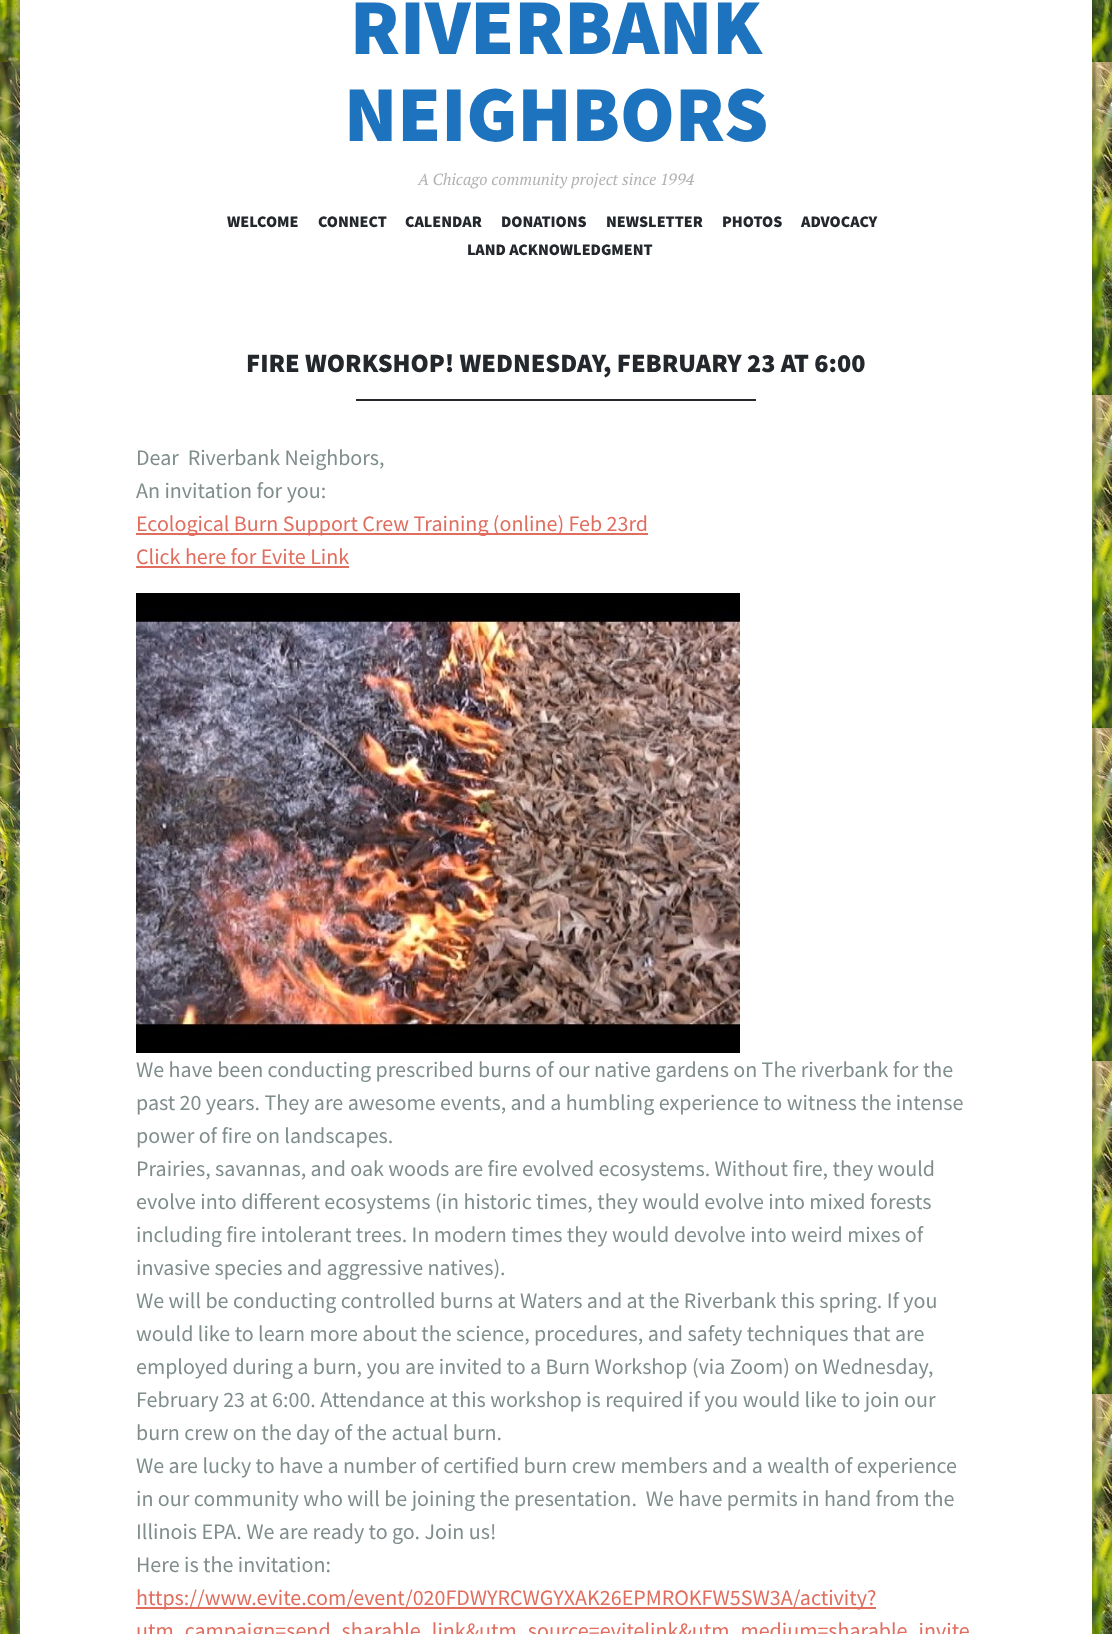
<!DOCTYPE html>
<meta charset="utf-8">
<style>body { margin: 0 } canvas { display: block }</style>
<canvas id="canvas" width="1112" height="1634"></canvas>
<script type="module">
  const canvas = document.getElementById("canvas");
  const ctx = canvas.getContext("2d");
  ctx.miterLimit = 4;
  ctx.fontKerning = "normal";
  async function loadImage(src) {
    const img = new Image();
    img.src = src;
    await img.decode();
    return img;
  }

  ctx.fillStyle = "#ffffff";
  ctx.fillRect(0, 0, 1112, 1634);
  ctx.drawImage(await loadImage("img1.png"), 0, 0, 1112, 1634);
  ctx.fillRect(20, 0, 1072, 1634);
  ctx.font = "900 79.25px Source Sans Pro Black";
  ctx.fillStyle = "#1e73be";
  ctx.fillText("RIVERBANK", 350, 54);
  ctx.fillText("NEIGHBORS", 344, 141);
  ctx.font = "italic 16.1px PT Serif";
  ctx.fillStyle = "#b1b2b3";
  ctx.fillText("A Chicago community project since 1994", 418, 185);
  ctx.font = "900 16.1px Source Sans Pro Black";
  ctx.fillStyle = "#24282d";
  ctx.fillText("WELCOME", 227, 227);
  ctx.fillText("CONNECT", 318, 227);
  ctx.fillText("CALENDAR", 405, 227);
  ctx.fillText("DONATIONS", 501, 227);
  ctx.fillText("NEWSLETTER", 606, 227);
  ctx.fillText("PHOTOS", 722, 227);
  ctx.fillText("ADVOCACY", 801, 227);
  ctx.fillText("LAND ACKNOWLEDGMENT", 467, 255);
  ctx.font = "900 26.4px Source Sans Pro Black";
  ctx.fillText("FIRE WORKSHOP! WEDNESDAY, FEBRUARY 23 AT 6:00", 246, 372);
  ctx.fillRect(356, 399, 400, 2);
  ctx.font = "22px Source Sans Pro";
  ctx.fillStyle = "#7f8d8c";
  ctx.fillText("Dear  Riverbank Neighbors,", 136, 465);
  ctx.fillText("An invitation for you:", 136, 498);
  ctx.fillStyle = "#e06d5e";
  ctx.fillRect(136, 533, 512, 2);
  ctx.fillText("Ecological Burn Support Crew Training (online) Feb 23rd", 136, 531);
  ctx.fillText("Click here for Evite Link", 136, 564);
  ctx.fillRect(136, 566, 213, 2);
  ctx.drawImage(await loadImage("img2.png"), 136, 593, 604, 460);
  ctx.fillStyle = "#7f8d8c";
  ctx.fillText("We have been conducting prescribed burns of our native gardens on The riverbank for the", 136, 1077);
  ctx.fillText("past 20 years. They are awesome events, and a humbling experience to witness the intense", 136, 1110);
  ctx.fillText("power of fire on landscapes.", 136, 1143);
  ctx.fillText("Prairies, savannas, and oak woods are fire evolved ecosystems. Without fire, they would", 136, 1176);
  ctx.fillText("evolve into different ecosystems (in historic times, they would evolve into mixed forests", 136, 1209);
  ctx.fillText("including fire intolerant trees. In modern times they would devolve into weird mixes of", 136, 1242);
  ctx.fillText("invasive species and aggressive natives).", 136, 1275);
  ctx.fillText("We will be conducting controlled burns at Waters and at the Riverbank this spring. If you", 136, 1308);
  ctx.fillText("would like to learn more about the science, procedures, and safety techniques that are", 136, 1341);
  ctx.fillText("employed during a burn, you are invited to a Burn Workshop (via Zoom) on Wednesday,", 136, 1374);
  ctx.fillText("February 23 at 6:00. Attendance at this workshop is required if you would like to join our", 136, 1407);
  ctx.fillText("burn crew on the day of the actual burn.", 136, 1440);
  ctx.fillText("We are lucky to have a number of certified burn crew members and a wealth of experience", 136, 1473);
  ctx.fillText("in our community who will be joining the presentation.  We have permits in hand from the", 136, 1506);
  ctx.fillText("Illinois EPA. We are ready to go. Join us!", 136, 1539);
  ctx.fillText("Here is the invitation:", 136, 1572);
  ctx.fillStyle = "#e06d5e";
  ctx.fillRect(136, 1607, 740, 2);
  ctx.fillText("https://www.evite.com/event/020FDWYRCWGYXAK26EPMROKFW5SW3A/activity?", 136, 1605);
  ctx.fillText("utm_campaign=send_sharable_link&utm_source=evitelink&utm_medium=sharable_invite", 136, 1638);
</script>
